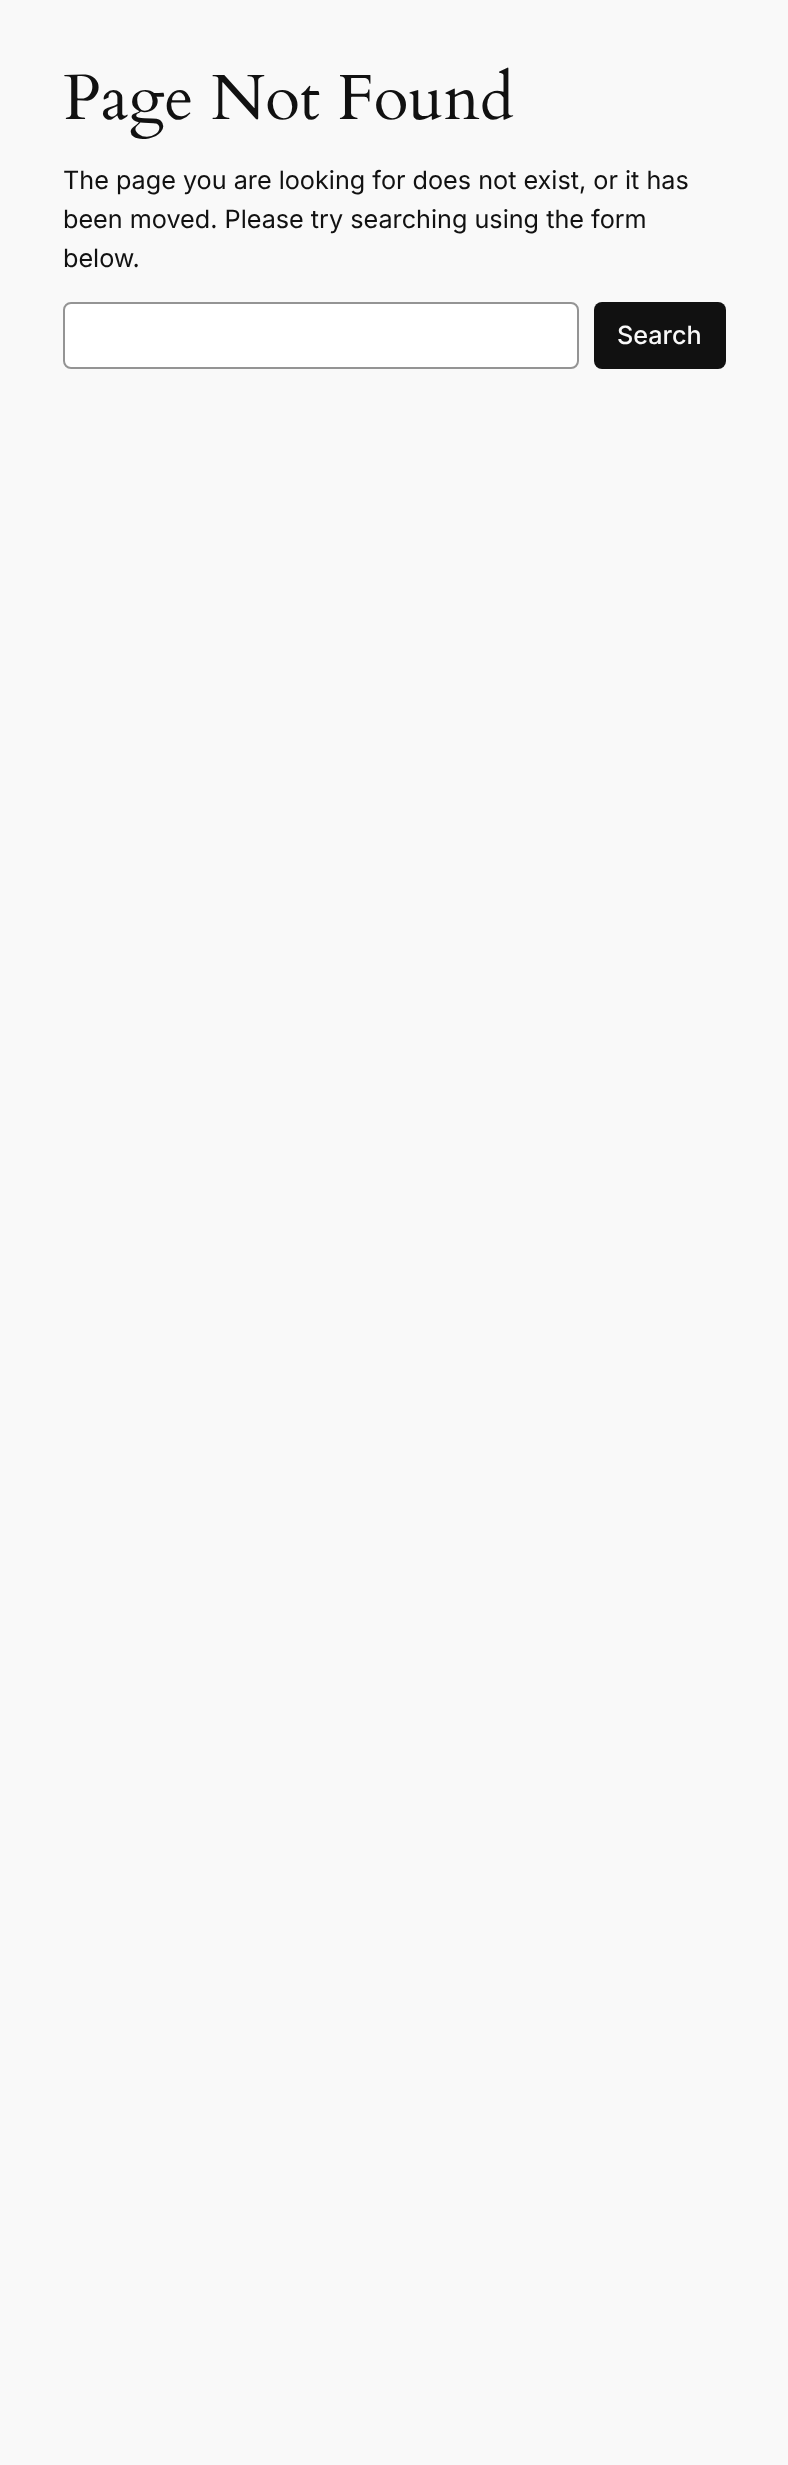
<!DOCTYPE html>
<meta charset="utf-8">
<style>body { margin: 0 } canvas { display: block }</style>
<canvas id="canvas" width="788" height="2465"></canvas>
<script type="module">
  const canvas = document.getElementById("canvas");
  const ctx = canvas.getContext("2d");
  ctx.miterLimit = 4;
  ctx.fontKerning = "normal";

  ctx.fillStyle = "#f9f9f9";
  ctx.fillRect(0, 0, 788, 2465);
  ctx.font = "64px Cardo";
  ctx.fillStyle = "#111111";
  ctx.fillText("Page Not Found", 63, 119);
  ctx.font = "25.2px Inter";
  ctx.fillText("The page you are looking for does not exist, or it has", 63, 189);
  ctx.fillText("been moved. Please try searching using the form", 63, 228);
  ctx.fillText("below.", 63, 267);
  ctx.fillStyle = "#ffffff";
  ctx.beginPath();
  ctx.roundRect(64, 303, 514, 65, 7);
  ctx.fill();
  ctx.strokeStyle = "#949494";
  ctx.lineWidth = 2;
  ctx.stroke();
  ctx.fillStyle = "#111111";
  ctx.beginPath();
  ctx.roundRect(594, 302, 132, 67, 8);
  ctx.fill();
  ctx.font = "500 25.2px Inter";
  ctx.fillStyle = "#f9f9f9";
  ctx.fillText("Search", 617, 344);
</script>
